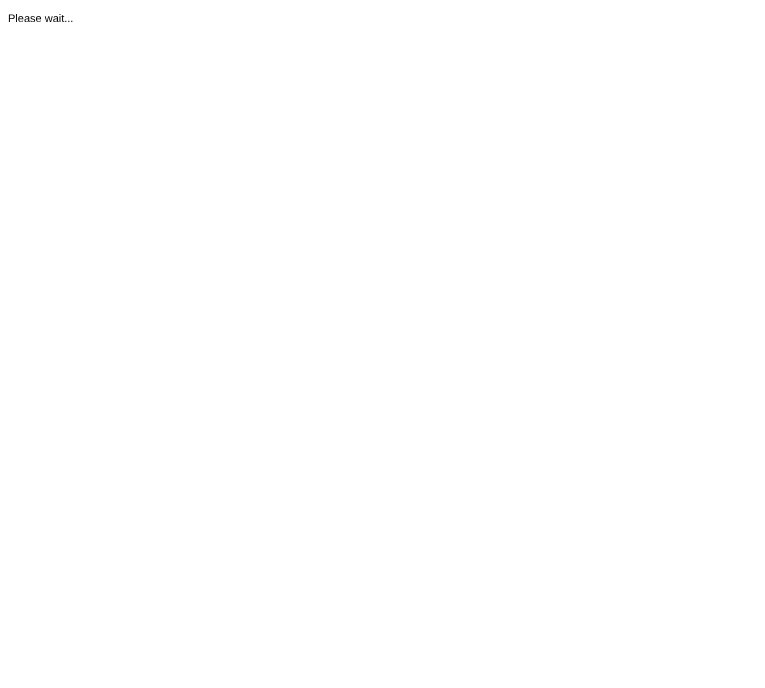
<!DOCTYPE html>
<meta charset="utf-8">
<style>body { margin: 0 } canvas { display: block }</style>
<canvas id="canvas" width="765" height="688"></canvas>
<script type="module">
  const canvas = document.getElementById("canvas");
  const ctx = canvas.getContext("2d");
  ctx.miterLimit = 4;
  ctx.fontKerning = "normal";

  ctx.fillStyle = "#ffffff";
  ctx.fillRect(0, 0, 765, 688);
  ctx.font = "11px Liberation Sans";
  ctx.fillStyle = "#000000";
  ctx.fillText("Please wait...", 8, 22);
</script>
